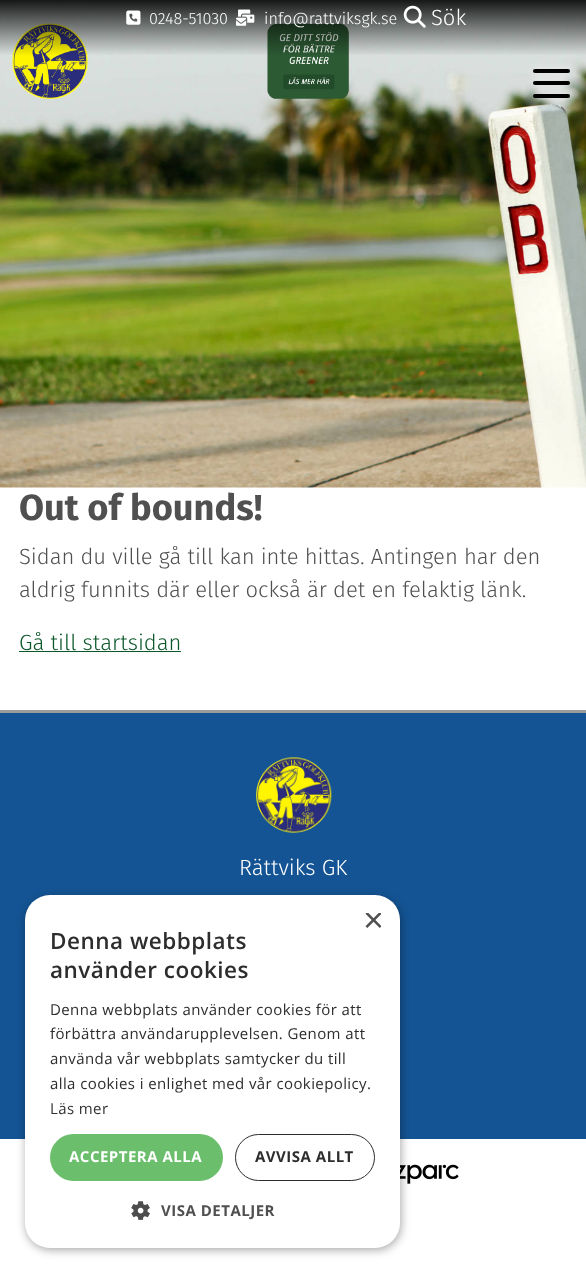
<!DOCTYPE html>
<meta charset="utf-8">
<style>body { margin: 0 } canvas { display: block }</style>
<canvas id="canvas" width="586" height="1272"></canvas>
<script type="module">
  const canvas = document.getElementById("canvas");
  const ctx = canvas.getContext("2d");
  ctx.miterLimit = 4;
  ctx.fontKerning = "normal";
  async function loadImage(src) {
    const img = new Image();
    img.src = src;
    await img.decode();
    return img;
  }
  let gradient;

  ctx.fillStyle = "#ffffff";
  ctx.fillRect(0, 0, 586, 1272);
  ctx.drawImage(await loadImage("img6.png"), 0, 0, 586, 488);
  ctx.drawImage(await loadImage("img4.png"), 12, 23, 76, 76);
  ctx.drawImage(await loadImage("img5.png"), 267, 23, 82, 76);
  ctx.fillStyle = "rgba(255, 255, 255, 0.8)";
  ctx.filter = "blur(4.5px)";
  ctx.beginPath();
  ctx.roundRect(533, 69, 37, 4, 2);
  ctx.fill();
  ctx.filter = "none";
  gradient = ctx.createLinearGradient(293, 56, 293, 0);
  gradient.addColorStop(0, "rgba(0, 0, 0, 0)");
  gradient.addColorStop(1, "rgba(0, 0, 0, 0.9)");
  ctx.fillStyle = gradient;
  ctx.fillRect(0, 0, 586, 55);
  ctx.drawImage(await loadImage("img1.png"), 126, 10, 15, 15);
  ctx.font = "300 16.25px Fira Sans";
  ctx.fillStyle = "#ffffff";
  ctx.fillText("0248-51030", 149, 24);
  ctx.drawImage(await loadImage("img2.png"), 236, 9, 19, 17);
  ctx.fillText("info@rattviksgk.se", 264, 24);
  ctx.drawImage(await loadImage("img3.png"), 403, 5, 23, 23);
  ctx.font = "300 22px Fira Sans";
  ctx.fillText("Sök", 431, 25);
  ctx.fillStyle = "#000000";
  ctx.beginPath();
  ctx.roundRect(533, 69, 37, 4, 2);
  ctx.fill();
  ctx.fillStyle = "rgba(255, 255, 255, 0.8)";
  ctx.filter = "blur(4.5px)";
  ctx.beginPath();
  ctx.roundRect(533, 81, 37, 4, 2);
  ctx.fill();
  ctx.filter = "none";
  ctx.fillStyle = "#000000";
  ctx.beginPath();
  ctx.roundRect(533, 81, 37, 4, 2);
  ctx.fill();
  ctx.fillStyle = "rgba(255, 255, 255, 0.8)";
  ctx.filter = "blur(4.5px)";
  ctx.beginPath();
  ctx.roundRect(533, 94, 37, 4, 2);
  ctx.fill();
  ctx.filter = "none";
  ctx.fillStyle = "#000000";
  ctx.beginPath();
  ctx.roundRect(533, 94, 37, 4, 2);
  ctx.fill();
  ctx.font = "bold 36.25px Fira Sans";
  ctx.fillStyle = "#505050";
  ctx.fillText("Out of bounds!", 19, 520);
  ctx.font = "300 22px Fira Sans";
  ctx.fillText("Sidan du ville gå till kan inte hittas. Antingen har den", 19, 564);
  ctx.fillText("aldrig funnits där eller också är det en felaktig länk.", 19, 597);
  ctx.fillStyle = "#0c572a";
  ctx.fillText("Gå till startsidan", 19, 650);
  ctx.fillRect(19, 651, 162, 1);
  ctx.fillStyle = "#145494";
  ctx.fillRect(0, 713, 586, 426);
  ctx.fillStyle = "#9c9c9c";
  ctx.fillRect(0, 710, 586, 3);
  ctx.drawImage(await loadImage("img7.png"), 256, 757, 76, 76);
  ctx.fillStyle = "#ffffff";
  ctx.fillText("Rättviks GK", 239, 875);
  ctx.drawImage(await loadImage("img8.png"), 400, 1164, 59, 20);
  ctx.fillStyle = "rgba(0, 0, 0, 0.35)";
  ctx.filter = "blur(5px)";
  ctx.beginPath();
  ctx.roundRect(26, 898, 375, 352, 25);
  ctx.fill();
  ctx.filter = "none";
  ctx.fillStyle = "#ffffff";
  ctx.beginPath();
  ctx.roundRect(25, 895, 375, 353, 25);
  ctx.fill();
  ctx.save();
  ctx.beginPath();
  ctx.rect(363, 913, 18, 18);
  ctx.clip();
  ctx.font = "36px Liberation Sans";
  ctx.fillStyle = "#505050";
  ctx.fillText("×", 363, 932);
  ctx.restore();
  ctx.letterSpacing = "0.5px";
  ctx.font = "600 22.5px Open Sans";
  ctx.fillStyle = "#2d2d2d";
  ctx.fillText("Denna webbplats", 50, 949);
  ctx.fillText("använder cookies", 50, 978);
  ctx.letterSpacing = "0.4px";
  ctx.font = "15px Open Sans";
  ctx.fillText("Denna webbplats använder cookies för att", 50, 1015);
  ctx.fillText("förbättra användarupplevelsen. Genom att", 50, 1039);
  ctx.fillText("använda vår webbplats samtycker du till", 50, 1064);
  ctx.fillText("alla cookies i enlighet med vår cookiepolicy.", 50, 1089);
  ctx.fillStyle = "#333333";
  ctx.fillText("Läs mer", 50, 1114);
  ctx.fillStyle = "#6bbe6b";
  ctx.beginPath();
  ctx.roundRect(50, 1134, 173, 47, 23.5);
  ctx.fill();
  ctx.letterSpacing = "0.5px";
  ctx.font = "bold 15px Open Sans";
  ctx.fillStyle = "#ffffff";
  ctx.fillText("ACCEPTERA ALLA", 69, 1162);
  ctx.beginPath();
  ctx.roundRect(235.5, 1134.5, 139, 46, 23);
  ctx.strokeStyle = "#2d2d2d";
  ctx.stroke();
  ctx.fillStyle = "#2d2d2d";
  ctx.fillText("AVVISA ALLT", 255, 1162);
  ctx.drawImage(await loadImage("img9.png"), 131, 1201, 19, 19);
  ctx.fillStyle = "#505050";
  ctx.fillText("VISA DETALJER", 161, 1216);
</script>
